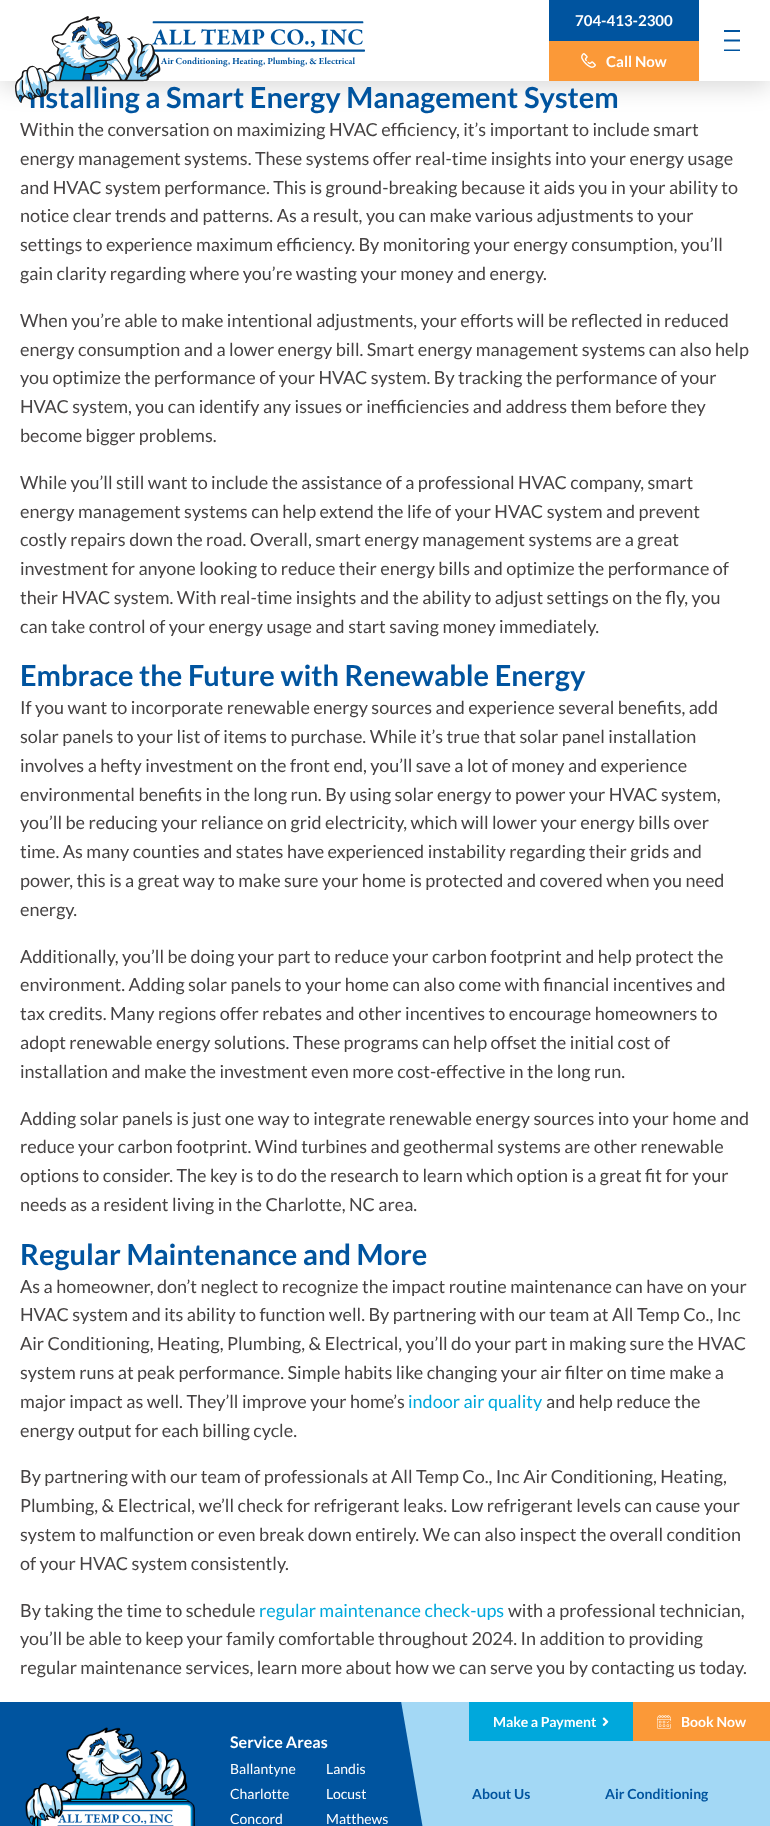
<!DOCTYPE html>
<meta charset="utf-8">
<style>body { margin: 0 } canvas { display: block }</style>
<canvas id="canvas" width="770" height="1826"></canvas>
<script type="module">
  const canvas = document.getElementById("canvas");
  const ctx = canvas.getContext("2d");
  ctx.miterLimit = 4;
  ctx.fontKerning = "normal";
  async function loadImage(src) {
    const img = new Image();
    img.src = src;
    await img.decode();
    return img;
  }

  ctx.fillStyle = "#ffffff";
  ctx.fillRect(0, 0, 770, 1826);
  ctx.fillStyle = "rgba(0, 0, 0, 0.15)";
  ctx.filter = "blur(12px)";
  ctx.beginPath();
  ctx.rect(0, 6, 770, 81);
  ctx.fill();
  ctx.filter = "none";
  ctx.fillStyle = "#ffffff";
  ctx.fillRect(0, 0, 770, 81);
  ctx.font = "bold 29px Lato";
  ctx.fillStyle = "#00549f";
  ctx.fillText("nstalling a Smart Energy Management System", 29, 108);
  ctx.drawImage(await loadImage("img1.png"), 15, 16, 350, 87);
  ctx.fillRect(549, 0, 150, 41);
  ctx.font = "bold 15px Lato";
  ctx.fillStyle = "#ffffff";
  ctx.fillText("704-413-2300", 575, 26);
  ctx.fillStyle = "#fb9938";
  ctx.fillRect(549, 41, 150, 40);
  ctx.drawImage(await loadImage("img2.png"), 581, 53, 15, 15);
  ctx.fillStyle = "#ffffff";
  ctx.fillText("Call Now", 606, 67);
  ctx.fillStyle = "#00549f";
  ctx.fillRect(724, 30, 16, 2);
  ctx.beginPath();
  ctx.moveTo(724, 40.5);
  ctx.lineTo(740, 40.5);
  ctx.strokeStyle = "#00549f";
  ctx.lineWidth = 2;
  ctx.stroke();
  ctx.save();
  ctx.beginPath();
  ctx.rect(724, 30, 16, 21);
  ctx.clip();
  ctx.beginPath();
  ctx.moveTo(724, 50.5);
  ctx.lineTo(740, 50.5);
  ctx.stroke();
  ctx.restore();
  ctx.font = "18px Lato";
  ctx.fillStyle = "#464343";
  ctx.fillText("Within the conversation on maximizing HVAC efficiency, it’s important to include smart", 20, 136);
  ctx.fillText("energy management systems. These systems offer real-time insights into your energy usage", 20, 165);
  ctx.fillText("and HVAC system performance. This is ground-breaking because it aids you in your ability to", 20, 194);
  ctx.fillText("notice clear trends and patterns. As a result, you can make various adjustments to your", 20, 222);
  ctx.fillText("settings to experience maximum efficiency. By monitoring your energy consumption, you’ll", 20, 251);
  ctx.fillText("gain clarity regarding where you’re wasting your money and energy.", 20, 280);
  ctx.fillText("When you’re able to make intentional adjustments, your efforts will be reflected in reduced", 20, 327);
  ctx.fillText("energy consumption and a lower energy bill. Smart energy management systems can also help", 20, 356);
  ctx.fillText("you optimize the performance of your HVAC system. By tracking the performance of your", 20, 384);
  ctx.fillText("HVAC system, you can identify any issues or inefficiencies and address them before they", 20, 413);
  ctx.fillText("become bigger problems.", 20, 442);
  ctx.fillText("While you’ll still want to include the assistance of a professional HVAC company, smart", 20, 489);
  ctx.fillText("energy management systems can help extend the life of your HVAC system and prevent", 20, 518);
  ctx.fillText("costly repairs down the road. Overall, smart energy management systems are a great", 20, 546);
  ctx.fillText("investment for anyone looking to reduce their energy bills and optimize the performance of", 20, 575);
  ctx.fillText("their HVAC system. With real-time insights and the ability to adjust settings on the fly, you", 20, 604);
  ctx.fillText("can take control of your energy usage and start saving money immediately.", 20, 633);
  ctx.font = "bold 29px Lato";
  ctx.fillStyle = "#00549f";
  ctx.fillText("Embrace the Future with Renewable Energy", 20, 686);
  ctx.font = "18px Lato";
  ctx.fillStyle = "#464343";
  ctx.fillText("If you want to incorporate renewable energy sources and experience several benefits, add", 20, 714);
  ctx.fillText("solar panels to your list of items to purchase. While it’s true that solar panel installation", 20, 743);
  ctx.fillText("involves a hefty investment on the front end, you’ll save a lot of money and experience", 20, 772);
  ctx.fillText("environmental benefits in the long run. By using solar energy to power your HVAC system,", 20, 801);
  ctx.fillText("you’ll be reducing your reliance on grid electricity, which will lower your energy bills over", 20, 829);
  ctx.fillText("time. As many counties and states have experienced instability regarding their grids and", 20, 858);
  ctx.fillText("power, this is a great way to make sure your home is protected and covered when you need", 20, 887);
  ctx.fillText("energy.", 20, 916);
  ctx.fillText("Additionally, you’ll be doing your part to reduce your carbon footprint and help protect the", 20, 963);
  ctx.fillText("environment. Adding solar panels to your home can also come with financial incentives and", 20, 991);
  ctx.fillText("tax credits. Many regions offer rebates and other incentives to encourage homeowners to", 20, 1020);
  ctx.fillText("adopt renewable energy solutions. These programs can help offset the initial cost of", 20, 1049);
  ctx.fillText("installation and make the investment even more cost-effective in the long run.", 20, 1078);
  ctx.fillText("Adding solar panels is just one way to integrate renewable energy sources into your home and", 20, 1125);
  ctx.fillText("reduce your carbon footprint. Wind turbines and geothermal systems are other renewable", 20, 1153);
  ctx.fillText("options to consider. The key is to do the research to learn which option is a great fit for your", 20, 1182);
  ctx.fillText("needs as a resident living in the Charlotte, NC area.", 20, 1211);
  ctx.font = "bold 29px Lato";
  ctx.fillStyle = "#00549f";
  ctx.fillText("Regular Maintenance and More", 20, 1265);
  ctx.font = "18px Lato";
  ctx.fillStyle = "#464343";
  ctx.fillText("As a homeowner, don’t neglect to recognize the impact routine maintenance can have on your", 20, 1293);
  ctx.fillText("HVAC system and its ability to function well. By partnering with our team at All Temp Co., Inc", 20, 1321);
  ctx.fillText("Air Conditioning, Heating, Plumbing, & Electrical, you’ll do your part in making sure the HVAC", 20, 1350);
  ctx.fillText("system runs at peak performance. Simple habits like changing your air filter on time make a", 20, 1379);
  ctx.fillText("major impact as well. They’ll improve your home’s", 20, 1408);
  ctx.fillStyle = "#00a8dc";
  ctx.fillText("indoor air quality", 408, 1408);
  ctx.fillStyle = "#464343";
  ctx.fillText("and help reduce the", 546, 1408);
  ctx.fillText("energy output for each billing cycle.", 20, 1437);
  ctx.fillText("By partnering with our team of professionals at All Temp Co., Inc Air Conditioning, Heating,", 20, 1483);
  ctx.fillText("Plumbing, & Electrical, we’ll check for refrigerant leaks. Low refrigerant levels can cause your", 20, 1512);
  ctx.fillText("system to malfunction or even break down entirely. We can also inspect the overall condition", 20, 1541);
  ctx.fillText("of your HVAC system consistently.", 20, 1570);
  ctx.fillText("By taking the time to schedule", 20, 1617);
  ctx.fillStyle = "#00a8dc";
  ctx.fillText("regular maintenance check-ups", 259, 1617);
  ctx.fillStyle = "#464343";
  ctx.fillText("with a professional technician,", 508, 1617);
  ctx.fillText("you’ll be able to keep your family comfortable throughout 2024. In addition to providing", 20, 1645);
  ctx.fillText("regular maintenance services, learn more about how we can serve you by contacting us today.", 20, 1674);
  ctx.fillStyle = "#00549f";
  ctx.fillRect(0, 1702, 423, 124);
  ctx.drawImage(await loadImage("img3.png"), 25, 1727, 170, 99);
  ctx.font = "bold 16px Lato";
  ctx.fillStyle = "#ffffff";
  ctx.fillText("Service Areas", 230, 1748);
  ctx.font = "14px Lato";
  ctx.fillText("Ballantyne", 230, 1774);
  ctx.fillText("Landis", 326, 1774);
  ctx.fillText("Charlotte", 230, 1799);
  ctx.fillText("Locust", 326, 1799);
  ctx.fillText("Concord", 230, 1824);
  ctx.fillText("Matthews", 326, 1824);
  ctx.fillStyle = "#a3d8f5";
  ctx.fillRect(463, 1702, 307, 124);
  ctx.save();
  ctx.beginPath();
  ctx.rect(0, 1702, 770, 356);
  ctx.clip();
  ctx.beginPath();
  ctx.moveTo(463, 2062);
  ctx.lineTo(401, 1701);
  ctx.lineTo(463, 1701);
  ctx.closePath();
  ctx.fill();
  ctx.restore();
  ctx.fillStyle = "#00a8dc";
  ctx.fillRect(469, 1702, 164, 39);
  ctx.font = "bold 14px Lato";
  ctx.fillStyle = "#ffffff";
  ctx.fillText("Make a Payment", 493, 1727);
  ctx.drawImage(await loadImage("img4.png"), 602, 1717, 7, 10);
  ctx.fillStyle = "#fb9938";
  ctx.fillRect(633, 1702, 137, 39);
  ctx.drawImage(await loadImage("img5.png"), 657, 1715, 14, 14);
  ctx.fillStyle = "#ffffff";
  ctx.fillText("Book Now", 681, 1727);
  ctx.fillStyle = "#00549f";
  ctx.fillText("About Us", 472, 1799);
  ctx.fillText("Air Conditioning", 605, 1799);
</script>
